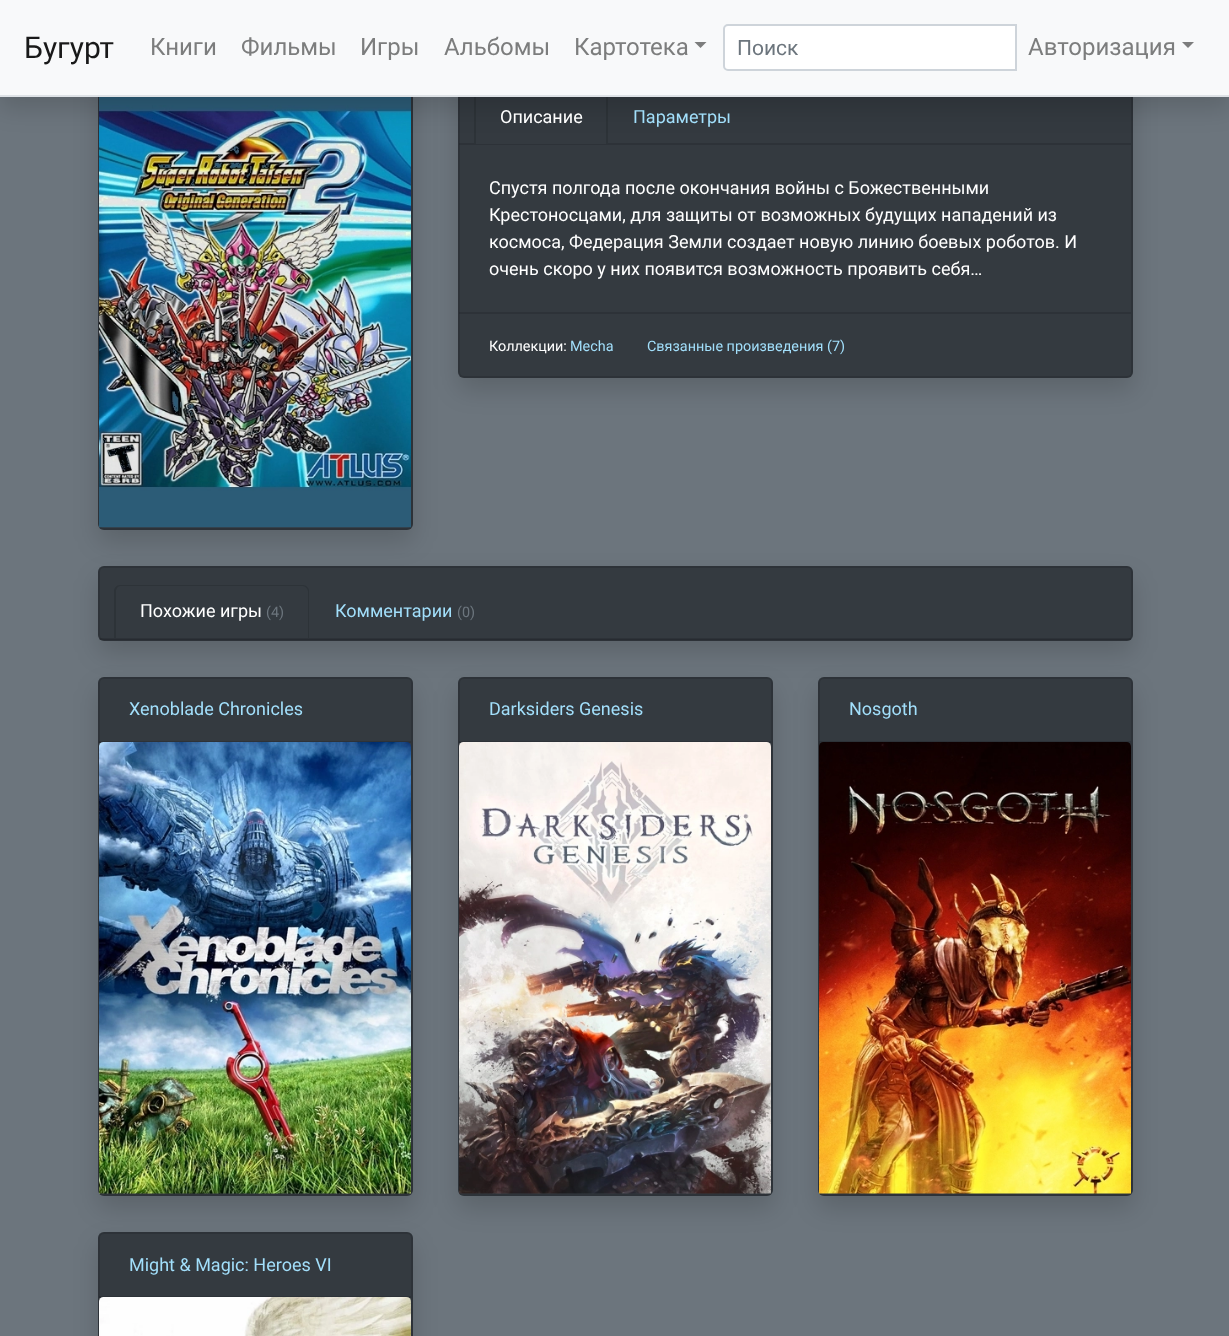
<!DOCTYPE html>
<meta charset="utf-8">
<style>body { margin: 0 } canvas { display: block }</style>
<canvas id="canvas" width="1229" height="1336"></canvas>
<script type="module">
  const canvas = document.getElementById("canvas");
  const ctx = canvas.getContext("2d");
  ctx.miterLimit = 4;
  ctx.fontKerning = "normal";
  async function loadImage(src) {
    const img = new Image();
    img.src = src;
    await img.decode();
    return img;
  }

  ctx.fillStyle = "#6c757d";
  ctx.fillRect(0, 0, 1229, 1336);
  ctx.fillStyle = "rgba(0, 0, 0, 0.15)";
  ctx.filter = "blur(12px)";
  ctx.beginPath();
  ctx.roundRect(98, 83, 315, 459, 6);
  ctx.fill();
  ctx.filter = "none";
  ctx.fillStyle = "#343a40";
  ctx.beginPath();
  ctx.roundRect(98, 71, 315, 459, 6);
  ctx.fill();
  ctx.beginPath();
  ctx.roundRect(99, 72, 313, 457, 5);
  ctx.strokeStyle = "rgba(0, 0, 0, 0.12)";
  ctx.lineWidth = 2;
  ctx.stroke();
  ctx.drawImage(await loadImage("img1.png"), 99, 97, 312, 431);
  ctx.fillStyle = "rgba(0, 0, 0, 0.15)";
  ctx.filter = "blur(12px)";
  ctx.beginPath();
  ctx.roundRect(458, 83, 675, 307, 6);
  ctx.fill();
  ctx.filter = "none";
  ctx.fillStyle = "#343a40";
  ctx.beginPath();
  ctx.roundRect(458, 71, 675, 307, 6);
  ctx.fill();
  ctx.beginPath();
  ctx.roundRect(459, 72, 673, 305, 5);
  ctx.stroke();
  ctx.fillStyle = "rgba(0, 0, 0, 0.12)";
  ctx.fillRect(459, 143, 672, 2);
  ctx.fillStyle = "#343a40";
  ctx.fillRect(476, 143, 130, 1);
  ctx.fillStyle = "#2d3338";
  ctx.beginPath();
  ctx.moveTo(480, 90);
  ctx.lineTo(602, 90);
  ctx.bezierCurveTo(605, 90, 608, 93, 608, 96);
  ctx.lineTo(608, 144);
  ctx.lineTo(474, 144);
  ctx.lineTo(474, 96);
  ctx.bezierCurveTo(474, 93, 477, 90, 480, 90);
  ctx.closePath();
  ctx.moveTo(480, 92);
  ctx.lineTo(602, 92);
  ctx.bezierCurveTo(604, 92, 606, 94, 606, 96);
  ctx.lineTo(606, 144);
  ctx.lineTo(476, 144);
  ctx.lineTo(476, 96);
  ctx.bezierCurveTo(476, 94, 478, 92, 480, 92);
  ctx.closePath();
  ctx.fill("evenodd");
  ctx.fillStyle = "rgba(0, 0, 0, 0.15)";
  ctx.filter = "blur(12px)";
  ctx.beginPath();
  ctx.rect(0, 12, 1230, 96);
  ctx.fill();
  ctx.filter = "none";
  ctx.fillStyle = "#f8f9fa";
  ctx.fillRect(0, 0, 1229, 95);
  ctx.fillStyle = "#dee2e6";
  ctx.fillRect(0, 95, 1229, 2);
  ctx.font = "30px Roboto";
  ctx.fillStyle = "#191919";
  ctx.fillText("Бугурт", 24, 58);
  ctx.font = "24px Roboto";
  ctx.fillStyle = "#7c7d7d";
  ctx.fillText("Книги", 150, 55);
  ctx.fillText("Фильмы", 241, 55);
  ctx.fillText("Игры", 360, 55);
  ctx.fillText("Альбомы", 444, 55);
  ctx.fillText("Картотека", 574, 55);
  ctx.beginPath();
  ctx.moveTo(694.5, 42);
  ctx.lineTo(706.5, 42);
  ctx.lineTo(700.5, 48);
  ctx.closePath();
  ctx.fill();
  ctx.fillStyle = "#ffffff";
  ctx.beginPath();
  ctx.roundRect(724, 25, 292, 45, [4, 0, 0, 4]);
  ctx.fill();
  ctx.strokeStyle = "#ced4da";
  ctx.stroke();
  ctx.font = "21px Roboto";
  ctx.fillStyle = "#6c757d";
  ctx.fillText("Поиск", 737, 55);
  ctx.font = "24px Roboto";
  ctx.fillStyle = "#7c7d7d";
  ctx.fillText("Авторизация", 1028, 55);
  ctx.beginPath();
  ctx.moveTo(1182, 42);
  ctx.lineTo(1194, 42);
  ctx.lineTo(1188, 48);
  ctx.closePath();
  ctx.fill();
  ctx.font = "18px Roboto";
  ctx.fillStyle = "#ffffff";
  ctx.fillText("Описание", 500, 123);
  ctx.fillStyle = "#a2dffb";
  ctx.fillText("Параметры", 633, 123);
  ctx.fillStyle = "#ffffff";
  ctx.fillText("Спустя полгода после окончания войны с Божественными", 489, 194);
  ctx.fillText("Крестоносцами, для защиты от возможных будущих нападений из", 489, 221);
  ctx.fillText("космоса, Федерация Земли создает новую линию боевых роботов. И", 489, 248);
  ctx.fillText("очень скоро у них появится возможность проявить себя…", 489, 275);
  ctx.fillStyle = "rgba(0, 0, 0, 0.03)";
  ctx.fillRect(459, 376, 1, 1);
  ctx.fillStyle = "rgba(0, 0, 0, 0.12)";
  ctx.fillRect(459, 312, 672, 2);
  ctx.font = "14.4px Roboto";
  ctx.fillStyle = "#ffffff";
  ctx.fillText("Коллекции:", 489, 351);
  ctx.fillStyle = "#a2dffb";
  ctx.fillText("Mecha", 570, 351);
  ctx.fillText("Связанные произведения (7)", 647, 351);
  ctx.fillStyle = "rgba(0, 0, 0, 0.15)";
  ctx.filter = "blur(12px)";
  ctx.beginPath();
  ctx.roundRect(98, 578, 1035, 75, 6);
  ctx.fill();
  ctx.filter = "none";
  ctx.fillStyle = "#343a40";
  ctx.beginPath();
  ctx.roundRect(98, 566, 1035, 75, 6);
  ctx.fill();
  ctx.beginPath();
  ctx.roundRect(99, 567, 1033, 73, 5);
  ctx.strokeStyle = "rgba(0, 0, 0, 0.12)";
  ctx.stroke();
  ctx.fillStyle = "rgba(0, 0, 0, 0.03)";
  ctx.fillRect(99, 567, 1, 1);
  ctx.fillStyle = "rgba(0, 0, 0, 0.12)";
  ctx.fillRect(99, 638, 1032, 2);
  ctx.fillStyle = "#2d3338";
  ctx.beginPath();
  ctx.moveTo(120, 585);
  ctx.lineTo(303, 585);
  ctx.bezierCurveTo(306, 585, 309, 588, 309, 591);
  ctx.lineTo(309, 638);
  ctx.lineTo(114, 638);
  ctx.lineTo(114, 591);
  ctx.bezierCurveTo(114, 588, 117, 585, 120, 585);
  ctx.closePath();
  ctx.moveTo(120, 586);
  ctx.lineTo(303, 586);
  ctx.bezierCurveTo(305, 586, 308, 589, 308, 591);
  ctx.lineTo(308, 638);
  ctx.lineTo(116, 638);
  ctx.lineTo(116, 591);
  ctx.bezierCurveTo(116, 589, 118, 586, 120, 586);
  ctx.closePath();
  ctx.fill("evenodd");
  ctx.font = "18px Roboto";
  ctx.fillStyle = "#ffffff";
  ctx.fillText("Похожие игры", 140, 617);
  ctx.font = "14.4px Roboto";
  ctx.fillStyle = "#6c757d";
  ctx.fillText("(4)", 266, 617);
  ctx.font = "18px Roboto";
  ctx.fillStyle = "#a2dffb";
  ctx.fillText("Комментарии", 335, 617);
  ctx.font = "14.4px Roboto";
  ctx.fillStyle = "#6c757d";
  ctx.fillText("(0)", 457, 617);
  ctx.fillStyle = "rgba(0, 0, 0, 0.15)";
  ctx.filter = "blur(12px)";
  ctx.beginPath();
  ctx.roundRect(98, 689, 315, 519, 6);
  ctx.fill();
  ctx.filter = "none";
  ctx.fillStyle = "#343a40";
  ctx.beginPath();
  ctx.roundRect(98, 677, 315, 519, 6);
  ctx.fill();
  ctx.beginPath();
  ctx.roundRect(99, 678, 313, 517, 5);
  ctx.stroke();
  ctx.fillStyle = "rgba(0, 0, 0, 0.03)";
  ctx.fillRect(99, 678, 1, 1);
  ctx.fillStyle = "rgba(0, 0, 0, 0.12)";
  ctx.fillRect(99, 741, 312, 2);
  ctx.font = "18px Roboto";
  ctx.fillStyle = "#a2dffb";
  ctx.fillText("Xenoblade Chronicles", 129, 715);
  ctx.drawImage(await loadImage("img2.png"), 99, 742, 312, 452);
  ctx.fillStyle = "rgba(0, 0, 0, 0.15)";
  ctx.filter = "blur(12px)";
  ctx.beginPath();
  ctx.roundRect(458, 689, 315, 519, 6);
  ctx.fill();
  ctx.filter = "none";
  ctx.fillStyle = "#343a40";
  ctx.beginPath();
  ctx.roundRect(458, 677, 315, 519, 6);
  ctx.fill();
  ctx.beginPath();
  ctx.roundRect(459, 678, 313, 517, 5);
  ctx.stroke();
  ctx.fillStyle = "rgba(0, 0, 0, 0.03)";
  ctx.fillRect(459, 678, 1, 1);
  ctx.fillStyle = "rgba(0, 0, 0, 0.12)";
  ctx.fillRect(459, 741, 312, 2);
  ctx.fillStyle = "#a2dffb";
  ctx.fillText("Darksiders Genesis", 489, 715);
  ctx.drawImage(await loadImage("img3.png"), 459, 742, 312, 452);
  ctx.fillStyle = "rgba(0, 0, 0, 0.15)";
  ctx.filter = "blur(12px)";
  ctx.beginPath();
  ctx.roundRect(818, 689, 315, 519, 6);
  ctx.fill();
  ctx.filter = "none";
  ctx.fillStyle = "#343a40";
  ctx.beginPath();
  ctx.roundRect(818, 677, 315, 519, 6);
  ctx.fill();
  ctx.beginPath();
  ctx.roundRect(819, 678, 313, 517, 5);
  ctx.stroke();
  ctx.fillStyle = "rgba(0, 0, 0, 0.03)";
  ctx.fillRect(819, 678, 1, 1);
  ctx.fillStyle = "rgba(0, 0, 0, 0.12)";
  ctx.fillRect(819, 741, 312, 2);
  ctx.fillStyle = "#a2dffb";
  ctx.fillText("Nosgoth", 849, 715);
  ctx.drawImage(await loadImage("img4.png"), 819, 742, 312, 452);
  ctx.fillStyle = "rgba(0, 0, 0, 0.15)";
  ctx.filter = "blur(12px)";
  ctx.beginPath();
  ctx.roundRect(98, 1244, 315, 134, 6);
  ctx.fill();
  ctx.filter = "none";
  ctx.fillStyle = "#343a40";
  ctx.beginPath();
  ctx.roundRect(98, 1232, 315, 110, 6);
  ctx.fill();
  ctx.beginPath();
  ctx.roundRect(99, 1233, 313, 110, 5);
  ctx.stroke();
  ctx.fillStyle = "rgba(0, 0, 0, 0.03)";
  ctx.fillRect(99, 1233, 1, 1);
  ctx.fillStyle = "rgba(0, 0, 0, 0.12)";
  ctx.fillRect(99, 1296, 312, 2);
  ctx.fillStyle = "#a2dffb";
  ctx.fillText("Might & Magic: Heroes VI", 129, 1271);
  ctx.drawImage(await loadImage("img5.png"), 99, 1297, 312, 39);
</script>
